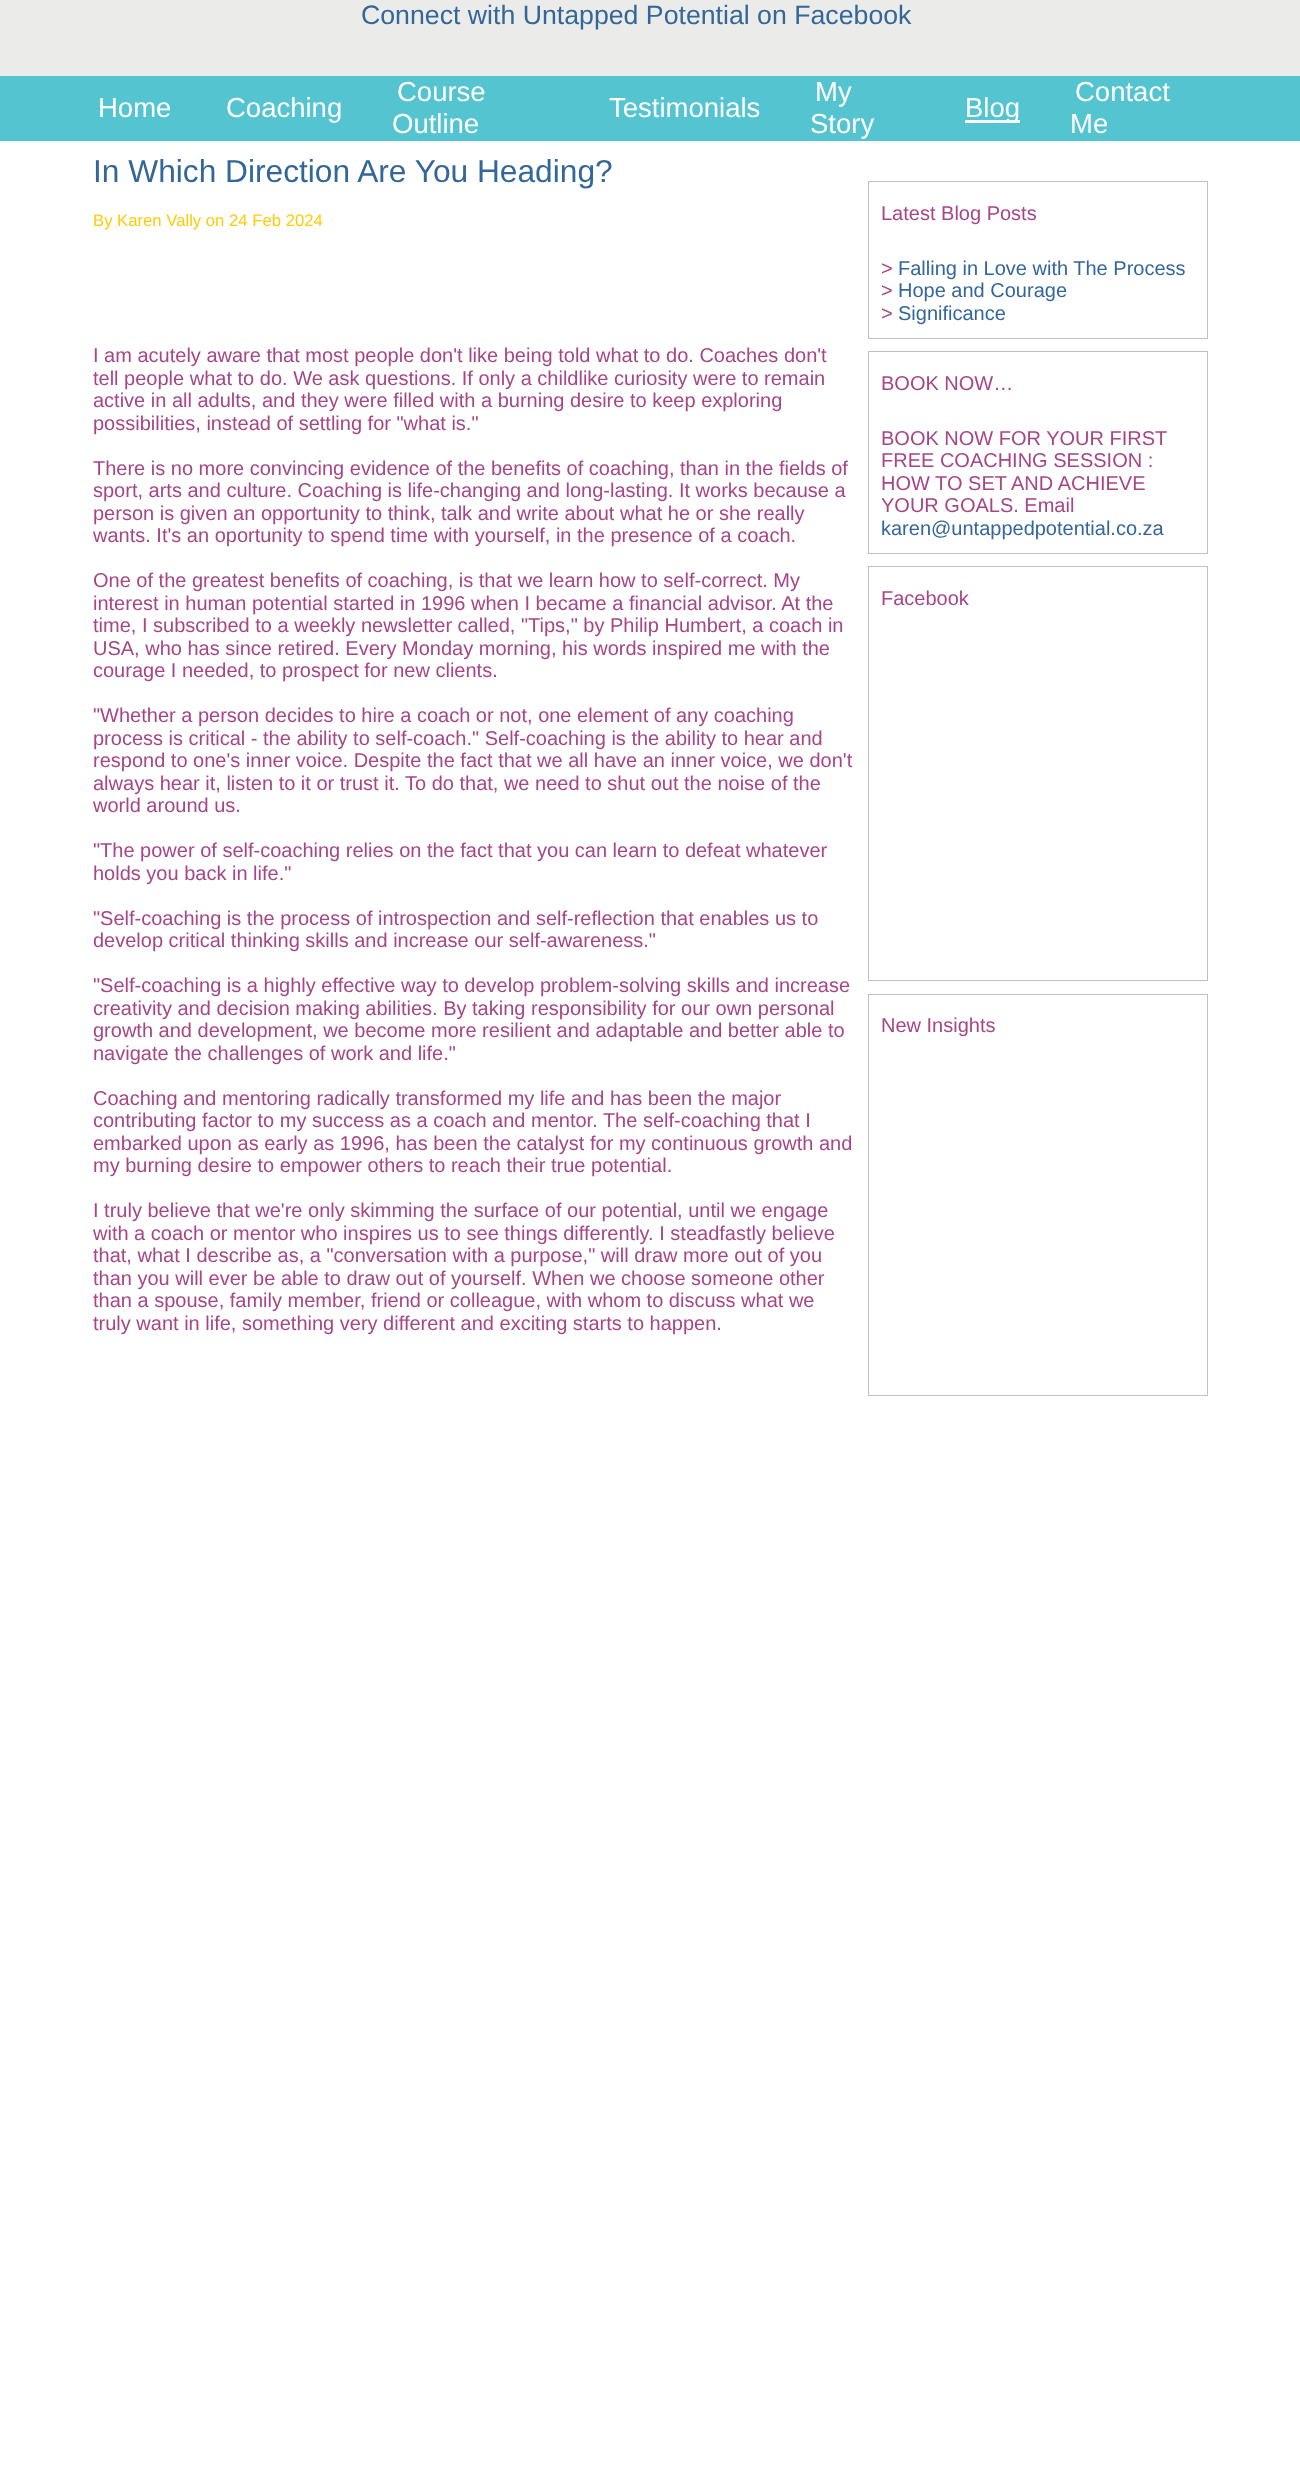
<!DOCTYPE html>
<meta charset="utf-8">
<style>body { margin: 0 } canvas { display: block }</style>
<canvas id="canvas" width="1300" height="2486"></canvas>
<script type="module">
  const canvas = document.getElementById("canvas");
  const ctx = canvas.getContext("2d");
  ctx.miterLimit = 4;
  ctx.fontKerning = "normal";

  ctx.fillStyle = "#ffffff";
  ctx.fillRect(0, 0, 1300, 2486);
  ctx.fillStyle = "#ebebe9";
  ctx.fillRect(0, 0, 1300, 76);
  ctx.font = "26.7px Liberation Sans";
  ctx.fillStyle = "#336699";
  ctx.fillText("Connect with Untapped Potential on Facebook", 361, 24);
  ctx.fillStyle = "#54c5d0";
  ctx.fillRect(0, 76, 1300, 65);
  ctx.font = "27.5px Liberation Sans";
  ctx.fillStyle = "#ffffff";
  ctx.fillText("Home", 98, 117);
  ctx.fillText("Coaching", 226, 117);
  ctx.fillText("Course", 397, 101);
  ctx.fillText("Outline", 392, 133);
  ctx.fillText("Testimonials", 609, 117);
  ctx.fillText("My", 815, 101);
  ctx.fillText("Story", 810, 133);
  ctx.fillRect(965, 120, 55, 3);
  ctx.fillText("Blog", 965, 117);
  ctx.fillText("Contact", 1075, 101);
  ctx.fillText("Me", 1070, 133);
  ctx.font = "31.7px Liberation Sans";
  ctx.fillStyle = "#336699";
  ctx.fillText("In Which Direction Are You Heading?", 93, 182);
  ctx.font = "16.7px Liberation Sans";
  ctx.fillStyle = "#ffcb08";
  ctx.fillText("By Karen Vally on 24 Feb 2024", 93, 226);
  ctx.font = "20px Liberation Sans";
  ctx.fillStyle = "#a64686";
  ctx.fillText("I am acutely aware that most people don't like being told what to do. Coaches don't", 93, 362);
  ctx.fillText("tell people what to do. We ask questions. If only a childlike curiosity were to remain", 93, 385);
  ctx.fillText("active in all adults, and they were filled with a burning desire to keep exploring", 93, 407);
  ctx.fillText("possibilities, instead of settling for \"what is.\"", 93, 430);
  ctx.fillText("There is no more convincing evidence of the benefits of coaching, than in the fields of", 93, 475);
  ctx.fillText("sport, arts and culture. Coaching is life-changing and long-lasting. It works because a", 93, 497);
  ctx.fillText("person is given an opportunity to think, talk and write about what he or she really", 93, 520);
  ctx.fillText("wants. It's an oportunity to spend time with yourself, in the presence of a coach.", 93, 542);
  ctx.fillText("One of the greatest benefits of coaching, is that we learn how to self-correct. My", 93, 587);
  ctx.fillText("interest in human potential started in 1996 when I became a financial advisor. At the", 93, 610);
  ctx.fillText("time, I subscribed to a weekly newsletter called, \"Tips,\" by Philip Humbert, a coach in", 93, 632);
  ctx.fillText("USA, who has since retired. Every Monday morning, his words inspired me with the", 93, 655);
  ctx.fillText("courage I needed, to prospect for new clients.", 93, 677);
  ctx.fillText("\"Whether a person decides to hire a coach or not, one element of any coaching", 93, 722);
  ctx.fillText("process is critical - the ability to self-coach.\" Self-coaching is the ability to hear and", 93, 745);
  ctx.fillText("respond to one's inner voice. Despite the fact that we all have an inner voice, we don't", 93, 767);
  ctx.fillText("always hear it, listen to it or trust it. To do that, we need to shut out the noise of the", 93, 790);
  ctx.fillText("world around us.", 93, 812);
  ctx.fillText("\"The power of self-coaching relies on the fact that you can learn to defeat whatever", 93, 857);
  ctx.fillText("holds you back in life.\"", 93, 880);
  ctx.fillText("\"Self-coaching is the process of introspection and self-reflection that enables us to", 93, 925);
  ctx.fillText("develop critical thinking skills and increase our self-awareness.\"", 93, 947);
  ctx.fillText("\"Self-coaching is a highly effective way to develop problem-solving skills and increase", 93, 992);
  ctx.fillText("creativity and decision making abilities. By taking responsibility for our own personal", 93, 1015);
  ctx.fillText("growth and development, we become more resilient and adaptable and better able to", 93, 1037);
  ctx.fillText("navigate the challenges of work and life.\"", 93, 1060);
  ctx.fillText("Coaching and mentoring radically transformed my life and has been the major", 93, 1105);
  ctx.fillText("contributing factor to my success as a coach and mentor. The self-coaching that I", 93, 1127);
  ctx.fillText("embarked upon as early as 1996, has been the catalyst for my continuous growth and", 93, 1150);
  ctx.fillText("my burning desire to empower others to reach their true potential.", 93, 1172);
  ctx.fillText("I truly believe that we're only skimming the surface of our potential, until we engage", 93, 1217);
  ctx.fillText("with a coach or mentor who inspires us to see things differently. I steadfastly believe", 93, 1240);
  ctx.fillText("that, what I describe as, a \"conversation with a purpose,\" will draw more out of you", 93, 1262);
  ctx.fillText("than you will ever be able to draw out of yourself. When we choose someone other", 93, 1285);
  ctx.fillText("than a spouse, family member, friend or colleague, with whom to discuss what we", 93, 1307);
  ctx.fillText("truly want in life, something very different and exciting starts to happen.", 93, 1330);
  ctx.strokeStyle = "#c0c0c0";
  ctx.strokeRect(868.5, 181.5, 339, 157);
  ctx.fillText("Latest Blog Posts", 881, 220);
  ctx.fillText(">", 881, 275);
  ctx.fillStyle = "#336699";
  ctx.fillText("Falling in Love with The Process", 898, 275);
  ctx.fillStyle = "#a64686";
  ctx.fillText(">", 881, 297);
  ctx.fillStyle = "#336699";
  ctx.fillText("Hope and Courage", 898, 297);
  ctx.fillStyle = "#a64686";
  ctx.fillText(">", 881, 320);
  ctx.fillStyle = "#336699";
  ctx.fillText("Significance", 898, 320);
  ctx.strokeRect(868.5, 351.5, 339, 202);
  ctx.fillStyle = "#a64686";
  ctx.fillText("BOOK NOW…", 881, 390);
  ctx.fillText("BOOK NOW FOR YOUR FIRST", 881, 445);
  ctx.fillText("FREE COACHING SESSION :", 881, 467);
  ctx.fillText("HOW TO SET AND ACHIEVE", 881, 490);
  ctx.fillText("YOUR GOALS. Email", 881, 512);
  ctx.fillStyle = "#336699";
  ctx.fillText("karen@untappedpotential.co.za", 881, 535);
  ctx.strokeRect(868.5, 566.5, 339, 414);
  ctx.fillStyle = "#a64686";
  ctx.fillText("Facebook", 881, 605);
  ctx.strokeRect(868.5, 994.5, 339, 401);
  ctx.fillText("New Insights", 881, 1032);
</script>
